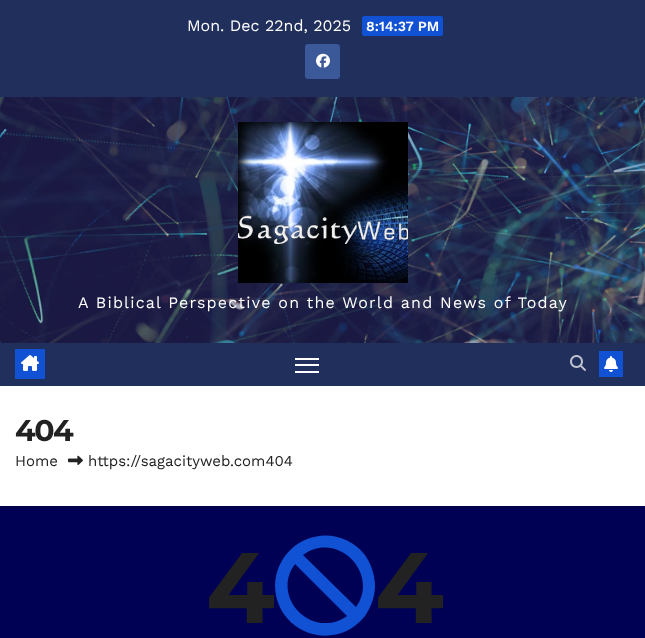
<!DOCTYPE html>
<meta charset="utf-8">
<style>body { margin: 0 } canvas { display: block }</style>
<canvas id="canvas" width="645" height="638"></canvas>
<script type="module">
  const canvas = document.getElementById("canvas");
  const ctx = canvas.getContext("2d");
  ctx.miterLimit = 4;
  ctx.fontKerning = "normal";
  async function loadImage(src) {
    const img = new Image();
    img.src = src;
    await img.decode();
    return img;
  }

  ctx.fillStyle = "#000154";
  ctx.fillRect(0, 0, 645, 638);
  ctx.fillStyle = "#202f5b";
  ctx.fillRect(0, 0, 645, 97);
  ctx.font = "16px Work Sans";
  ctx.fillStyle = "#ffffff";
  ctx.fillText("Mon. Dec 22nd, 2025", 187, 31);
  ctx.fillStyle = "#1151d3";
  ctx.beginPath();
  ctx.roundRect(362, 16, 81, 20, 2);
  ctx.fill();
  ctx.font = "600 14px Work Sans";
  ctx.fillStyle = "#ffffff";
  ctx.fillText("8:14:37 PM", 366, 31);
  ctx.fillStyle = "#3b5998";
  ctx.beginPath();
  ctx.roundRect(305, 44, 35, 35, 3);
  ctx.fill();
  ctx.drawImage(await loadImage("img1.png"), 316, 53, 14, 15);
  ctx.drawImage(await loadImage("img2.png"), 0, 97, 645, 246);
  ctx.drawImage(await loadImage("img3.png"), 238, 122, 170, 161);
  ctx.letterSpacing = "1.2px";
  ctx.font = "16px Work Sans";
  ctx.fillStyle = "#ffffff";
  ctx.fillText("A Biblical Perspective on the World and News of Today", 78, 308);
  ctx.fillStyle = "rgba(0, 0, 0, 0.15)";
  ctx.filter = "blur(1.5px)";
  ctx.beginPath();
  ctx.rect(0, 387, 645, 120);
  ctx.fill();
  ctx.filter = "none";
  ctx.fillStyle = "#202f5b";
  ctx.fillRect(0, 343, 645, 43);
  ctx.fillStyle = "#1151d3";
  ctx.fillRect(15, 349, 30, 30);
  ctx.drawImage(await loadImage("img4.png"), 21, 355, 18, 16);
  ctx.fillStyle = "#ffffff";
  ctx.fillRect(295, 358, 24, 2);
  ctx.fillRect(295, 364, 24, 2);
  ctx.fillRect(295, 371, 24, 2);
  ctx.drawImage(await loadImage("img5.png"), 570, 355, 16, 16);
  ctx.fillStyle = "#1151d3";
  ctx.fillRect(599, 351, 24, 26);
  ctx.drawImage(await loadImage("img6.png"), 604, 356, 14, 16);
  ctx.fillStyle = "#ffffff";
  ctx.fillRect(0, 386, 645, 120);
  ctx.letterSpacing = "-1.5px";
  ctx.font = "bold 30px Montserrat";
  ctx.fillStyle = "#222222";
  ctx.fillText("404", 15, 441);
  ctx.letterSpacing = "0px";
  ctx.font = "15px Work Sans";
  ctx.fillText("Home", 15, 466);
  ctx.drawImage(await loadImage("img7.png"), 68, 455, 15, 10);
  ctx.fillText("https://sagacityweb.com404", 88, 466);
  ctx.letterSpacing = "-5px";
  ctx.font = "bold 100px Montserrat";
  ctx.fillText("4", 206, 623);
  ctx.fillStyle = "#1151d3";
  ctx.beginPath();
  ctx.moveTo(347, 616);
  ctx.lineTo(295, 564);
  ctx.bezierCurveTo(270, 598, 313, 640, 347, 616);
  ctx.closePath();
  ctx.moveTo(356, 607);
  ctx.bezierCurveTo(380, 573, 337, 530, 303, 555);
  ctx.closePath();
  ctx.moveTo(275, 586);
  ctx.bezierCurveTo(276, 538, 335, 517, 365, 555);
  ctx.bezierCurveTo(371, 564, 375, 575, 375, 586);
  ctx.bezierCurveTo(375, 596, 371, 607, 365, 616);
  ctx.bezierCurveTo(335, 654, 276, 633, 275, 586);
  ctx.closePath();
  ctx.fill();
  ctx.fillStyle = "#222222";
  ctx.fillText("4", 375, 623);
</script>
